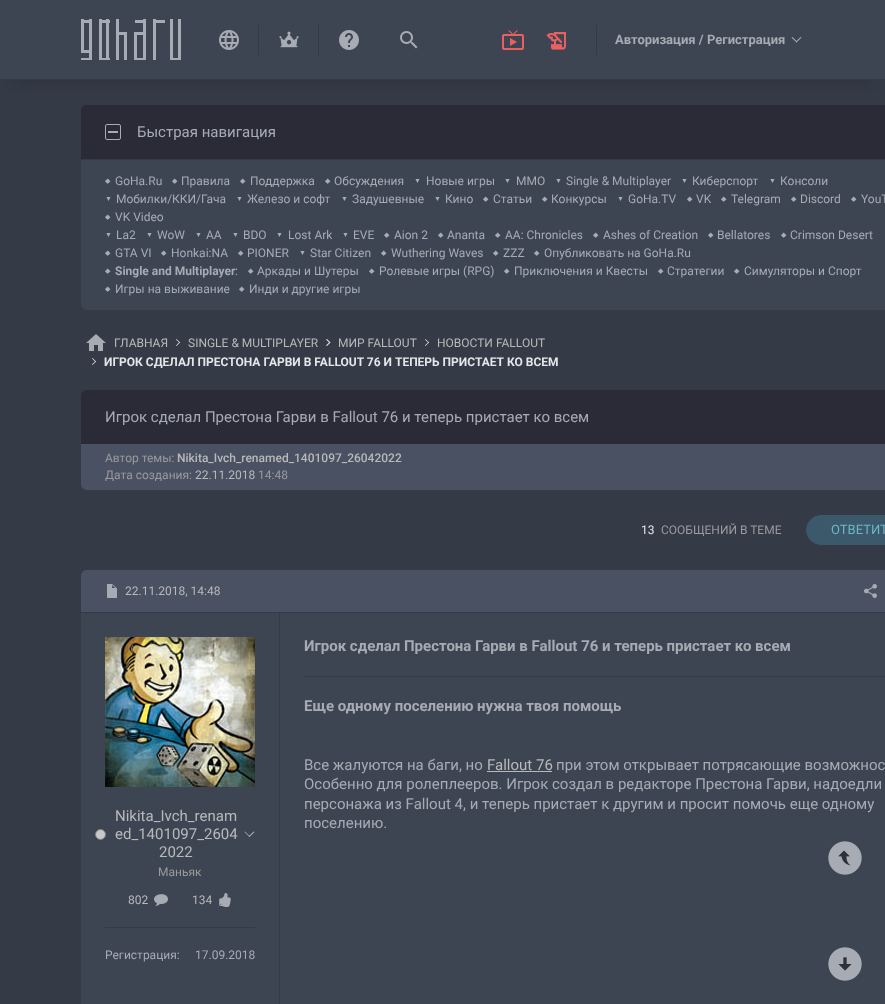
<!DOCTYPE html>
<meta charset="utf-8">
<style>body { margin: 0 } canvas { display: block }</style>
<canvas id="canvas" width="885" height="1004"></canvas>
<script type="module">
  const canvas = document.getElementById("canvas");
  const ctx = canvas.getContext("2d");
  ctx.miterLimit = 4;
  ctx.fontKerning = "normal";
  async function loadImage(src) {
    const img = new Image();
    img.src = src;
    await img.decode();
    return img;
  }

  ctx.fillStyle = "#343a46";
  ctx.fillRect(0, 0, 885, 1004);
  ctx.fillStyle = "rgba(0, 0, 0, 0.15)";
  ctx.filter = "blur(7.5px)";
  ctx.beginPath();
  ctx.rect(15, 30, 855, 50);
  ctx.fill();
  ctx.filter = "none";
  ctx.fillStyle = "#3d4552";
  ctx.fillRect(0, 0, 885, 79);
  ctx.fillStyle = "#333b46";
  ctx.fillRect(12, 79, 861, 1);
  ctx.drawImage(await loadImage("img1.png"), 81, 19, 100, 41);
  ctx.drawImage(await loadImage("img2.png"), 219, 30, 20, 20);
  ctx.fillRect(258, 25, 1, 30);
  ctx.drawImage(await loadImage("img3.png"), 279, 31, 20, 17);
  ctx.fillRect(318, 25, 1, 30);
  ctx.drawImage(await loadImage("img4.png"), 339, 30, 20, 20);
  ctx.drawImage(await loadImage("img5.png"), 400, 31, 18, 18);
  ctx.drawImage(await loadImage("img6.png"), 502, 30, 22, 20);
  ctx.drawImage(await loadImage("img7.png"), 546, 32, 20, 18);
  ctx.fillRect(596, 25, 1, 30);
  ctx.font = "bold 13px Roboto";
  ctx.fillStyle = "#a7abb4";
  ctx.fillText("Авторизация / Регистрация", 615, 44);
  ctx.beginPath();
  ctx.moveTo(800.5, 37);
  ctx.lineTo(801.5, 37.5);
  ctx.lineTo(796.5, 42.5);
  ctx.lineTo(796, 41.5);
  ctx.closePath();
  ctx.fill();
  ctx.beginPath();
  ctx.moveTo(792.5, 37);
  ctx.lineTo(797, 41.5);
  ctx.lineTo(796.5, 42.5);
  ctx.lineTo(791.5, 37.5);
  ctx.closePath();
  ctx.fill();
  ctx.fillStyle = "#2b2b37";
  ctx.beginPath();
  ctx.moveTo(87, 105);
  ctx.lineTo(885, 105);
  ctx.bezierCurveTo(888.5, 105, 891, 107.5, 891, 111);
  ctx.lineTo(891, 159);
  ctx.lineTo(81, 159);
  ctx.lineTo(81, 111);
  ctx.bezierCurveTo(81, 107.5, 83.5, 105, 87, 105);
  ctx.closePath();
  ctx.fill();
  ctx.beginPath();
  ctx.roundRect(105.5, 124.5, 15, 15, 1.5);
  ctx.strokeStyle = "#a7abb4";
  ctx.stroke();
  ctx.fillStyle = "#a7abb4";
  ctx.fillRect(108, 131, 10, 2);
  ctx.font = "15px Roboto";
  ctx.fillText("Быстрая навигация", 137, 137);
  ctx.fillStyle = "#3d4552";
  ctx.beginPath();
  ctx.moveTo(81, 160);
  ctx.lineTo(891, 160);
  ctx.lineTo(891, 304);
  ctx.bezierCurveTo(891, 307.5, 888.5, 310, 885, 310);
  ctx.lineTo(87, 310);
  ctx.bezierCurveTo(83.5, 310, 81, 307.5, 81, 304);
  ctx.closePath();
  ctx.fill();
  ctx.font = "7px DejaVu Sans";
  ctx.fillStyle = "#a7abb4";
  ctx.fillText("◆", 105, 183);
  ctx.font = "12px Roboto";
  ctx.fillText("GoHa.Ru", 115, 185);
  ctx.font = "7px DejaVu Sans";
  ctx.fillText("◆", 172, 183);
  ctx.font = "12px Roboto";
  ctx.fillText("Правила", 181, 185);
  ctx.font = "7px DejaVu Sans";
  ctx.fillText("◆", 240, 183);
  ctx.font = "12px Roboto";
  ctx.fillText("Поддержка", 250, 185);
  ctx.font = "7px DejaVu Sans";
  ctx.fillText("◆", 325, 183);
  ctx.font = "12px Roboto";
  ctx.fillText("Обсуждения", 334, 185);
  ctx.font = "7px Liberation Sans";
  ctx.fillText("▼", 414, 183);
  ctx.font = "12px Roboto";
  ctx.fillText("Новые игры", 426, 185);
  ctx.font = "7px Liberation Sans";
  ctx.fillText("▼", 504, 183);
  ctx.font = "12px Roboto";
  ctx.fillText("MMO", 516, 185);
  ctx.font = "7px Liberation Sans";
  ctx.fillText("▼", 555, 183);
  ctx.font = "12px Roboto";
  ctx.fillText("Single & Multiplayer", 566, 185);
  ctx.font = "7px Liberation Sans";
  ctx.fillText("▼", 681, 183);
  ctx.font = "12px Roboto";
  ctx.fillText("Киберспорт", 692, 185);
  ctx.font = "7px Liberation Sans";
  ctx.fillText("▼", 769, 183);
  ctx.font = "12px Roboto";
  ctx.fillText("Консоли", 780, 185);
  ctx.font = "7px Liberation Sans";
  ctx.fillText("▼", 105, 201);
  ctx.font = "12px Roboto";
  ctx.fillText("Мобилки/ККИ/Гача", 116, 203);
  ctx.font = "7px Liberation Sans";
  ctx.fillText("▼", 236, 201);
  ctx.font = "12px Roboto";
  ctx.fillText("Железо и софт", 247, 203);
  ctx.font = "7px Liberation Sans";
  ctx.fillText("▼", 341, 201);
  ctx.font = "12px Roboto";
  ctx.fillText("Задушевные", 352, 203);
  ctx.font = "7px Liberation Sans";
  ctx.fillText("▼", 434, 201);
  ctx.font = "12px Roboto";
  ctx.fillText("Кино", 445, 203);
  ctx.font = "7px DejaVu Sans";
  ctx.fillText("◆", 483, 201);
  ctx.font = "12px Roboto";
  ctx.fillText("Статьи", 493, 203);
  ctx.font = "7px DejaVu Sans";
  ctx.fillText("◆", 542, 201);
  ctx.font = "12px Roboto";
  ctx.fillText("Конкурсы", 551, 203);
  ctx.font = "7px Liberation Sans";
  ctx.fillText("▼", 617, 201);
  ctx.font = "12px Roboto";
  ctx.fillText("GoHa.TV", 628, 203);
  ctx.font = "7px DejaVu Sans";
  ctx.fillText("◆", 687, 201);
  ctx.font = "12px Roboto";
  ctx.fillText("VK", 696, 203);
  ctx.font = "7px DejaVu Sans";
  ctx.fillText("◆", 721, 201);
  ctx.font = "12px Roboto";
  ctx.fillText("Telegram", 731, 203);
  ctx.font = "7px DejaVu Sans";
  ctx.fillText("◆", 791, 201);
  ctx.font = "12px Roboto";
  ctx.fillText("Discord", 800, 203);
  ctx.font = "7px DejaVu Sans";
  ctx.fillText("◆", 851, 201);
  ctx.font = "12px Roboto";
  ctx.fillText("YouT", 861, 203);
  ctx.font = "7px DejaVu Sans";
  ctx.fillText("◆", 105, 219);
  ctx.font = "12px Roboto";
  ctx.fillText("VK Video", 115, 221);
  ctx.font = "7px Liberation Sans";
  ctx.fillText("▼", 105, 237);
  ctx.font = "12px Roboto";
  ctx.fillText("La2", 116, 239);
  ctx.font = "7px Liberation Sans";
  ctx.fillText("▼", 146, 237);
  ctx.font = "12px Roboto";
  ctx.fillText("WoW", 157, 239);
  ctx.font = "7px Liberation Sans";
  ctx.fillText("▼", 195, 237);
  ctx.font = "12px Roboto";
  ctx.fillText("AA", 206, 239);
  ctx.font = "7px Liberation Sans";
  ctx.fillText("▼", 232, 237);
  ctx.font = "12px Roboto";
  ctx.fillText("BDO", 243, 239);
  ctx.font = "7px Liberation Sans";
  ctx.fillText("▼", 276, 237);
  ctx.font = "12px Roboto";
  ctx.fillText("Lost Ark", 288, 239);
  ctx.font = "7px Liberation Sans";
  ctx.fillText("▼", 342, 237);
  ctx.font = "12px Roboto";
  ctx.fillText("EVE", 353, 239);
  ctx.font = "7px DejaVu Sans";
  ctx.fillText("◆", 384, 237);
  ctx.font = "12px Roboto";
  ctx.fillText("Aion 2", 394, 239);
  ctx.font = "7px DejaVu Sans";
  ctx.fillText("◆", 438, 237);
  ctx.font = "12px Roboto";
  ctx.fillText("Ananta", 447, 239);
  ctx.font = "7px DejaVu Sans";
  ctx.fillText("◆", 495, 237);
  ctx.font = "12px Roboto";
  ctx.fillText("AA: Chronicles", 505, 239);
  ctx.font = "7px DejaVu Sans";
  ctx.fillText("◆", 593, 237);
  ctx.font = "12px Roboto";
  ctx.fillText("Ashes of Creation", 603, 239);
  ctx.font = "7px DejaVu Sans";
  ctx.fillText("◆", 708, 237);
  ctx.font = "12px Roboto";
  ctx.fillText("Bellatores", 717, 239);
  ctx.font = "7px DejaVu Sans";
  ctx.fillText("◆", 781, 237);
  ctx.font = "12px Roboto";
  ctx.fillText("Crimson Desert", 790, 239);
  ctx.font = "7px DejaVu Sans";
  ctx.fillText("◆", 105, 255);
  ctx.font = "12px Roboto";
  ctx.fillText("GTA VI", 115, 257);
  ctx.font = "7px DejaVu Sans";
  ctx.fillText("◆", 161, 255);
  ctx.font = "12px Roboto";
  ctx.fillText("Honkai:NA", 171, 257);
  ctx.font = "7px DejaVu Sans";
  ctx.fillText("◆", 238, 255);
  ctx.font = "12px Roboto";
  ctx.fillText("PIONER", 247, 257);
  ctx.font = "7px Liberation Sans";
  ctx.fillText("▼", 299, 255);
  ctx.font = "12px Roboto";
  ctx.fillText("Star Citizen", 310, 257);
  ctx.font = "7px DejaVu Sans";
  ctx.fillText("◆", 381, 255);
  ctx.font = "12px Roboto";
  ctx.fillText("Wuthering Waves", 391, 257);
  ctx.font = "7px DejaVu Sans";
  ctx.fillText("◆", 493, 255);
  ctx.font = "12px Roboto";
  ctx.fillText("ZZZ", 503, 257);
  ctx.font = "7px DejaVu Sans";
  ctx.fillText("◆", 534, 255);
  ctx.font = "12px Roboto";
  ctx.fillText("Опубликовать на GoHa.Ru", 544, 257);
  ctx.font = "7px DejaVu Sans";
  ctx.fillText("◆", 105, 273);
  ctx.font = "bold 12px Roboto";
  ctx.fillText("Single and Multiplayer", 115, 275);
  ctx.font = "12px Roboto";
  ctx.fillText(":", 235, 275);
  ctx.font = "7px DejaVu Sans";
  ctx.fillText("◆", 248, 273);
  ctx.font = "12px Roboto";
  ctx.fillText("Аркады и Шутеры", 257, 275);
  ctx.font = "7px DejaVu Sans";
  ctx.fillText("◆", 369, 273);
  ctx.font = "12px Roboto";
  ctx.fillText("Ролевые игры (RPG)", 379, 275);
  ctx.font = "7px DejaVu Sans";
  ctx.fillText("◆", 504, 273);
  ctx.font = "12px Roboto";
  ctx.fillText("Приключения и Квесты", 514, 275);
  ctx.font = "7px DejaVu Sans";
  ctx.fillText("◆", 658, 273);
  ctx.font = "12px Roboto";
  ctx.fillText("Стратегии", 667, 275);
  ctx.font = "7px DejaVu Sans";
  ctx.fillText("◆", 734, 273);
  ctx.font = "12px Roboto";
  ctx.fillText("Симуляторы и Спорт", 744, 275);
  ctx.font = "7px DejaVu Sans";
  ctx.fillText("◆", 105, 291);
  ctx.font = "12px Roboto";
  ctx.fillText("Игры на выживание", 115, 293);
  ctx.font = "7px DejaVu Sans";
  ctx.fillText("◆", 239, 291);
  ctx.font = "12px Roboto";
  ctx.fillText("Инди и другие игры", 249, 293);
  ctx.drawImage(await loadImage("img8.png"), 86, 334, 20, 17);
  ctx.fillStyle = "#b9b9b9";
  ctx.fillText("ГЛАВНАЯ", 114, 347);
  ctx.fillStyle = "#e5e6ea";
  ctx.beginPath();
  ctx.moveTo(176.5, 339);
  ctx.lineTo(180, 342.5);
  ctx.lineTo(179.5, 343);
  ctx.lineTo(176, 339.5);
  ctx.closePath();
  ctx.fill();
  ctx.beginPath();
  ctx.moveTo(179.5, 342);
  ctx.lineTo(180, 342.5);
  ctx.lineTo(176.5, 346);
  ctx.lineTo(176, 345.5);
  ctx.closePath();
  ctx.fill();
  ctx.fillStyle = "#b9b9b9";
  ctx.fillText("SINGLE & MULTIPLAYER", 188, 347);
  ctx.fillStyle = "#e5e6ea";
  ctx.beginPath();
  ctx.moveTo(327, 339);
  ctx.lineTo(330.5, 342.5);
  ctx.lineTo(329.5, 343);
  ctx.lineTo(326, 339.5);
  ctx.closePath();
  ctx.fill();
  ctx.beginPath();
  ctx.moveTo(329.5, 342);
  ctx.lineTo(330.5, 342.5);
  ctx.lineTo(327, 346);
  ctx.lineTo(326, 345.5);
  ctx.closePath();
  ctx.fill();
  ctx.fillStyle = "#b9b9b9";
  ctx.fillText("МИР FALLOUT", 338, 347);
  ctx.fillStyle = "#e5e6ea";
  ctx.beginPath();
  ctx.moveTo(425.5, 339);
  ctx.lineTo(429, 342.5);
  ctx.lineTo(428.5, 343);
  ctx.lineTo(425, 339.5);
  ctx.closePath();
  ctx.fill();
  ctx.beginPath();
  ctx.moveTo(428.5, 342);
  ctx.lineTo(429, 342.5);
  ctx.lineTo(425.5, 346);
  ctx.lineTo(425, 345.5);
  ctx.closePath();
  ctx.fill();
  ctx.fillStyle = "#b9b9b9";
  ctx.fillText("НОВОСТИ FALLOUT", 437, 347);
  ctx.fillStyle = "#e5e6ea";
  ctx.beginPath();
  ctx.moveTo(92.5, 358);
  ctx.lineTo(96, 361.5);
  ctx.lineTo(95.5, 362);
  ctx.lineTo(92, 358.5);
  ctx.closePath();
  ctx.fill();
  ctx.beginPath();
  ctx.moveTo(95.5, 361);
  ctx.lineTo(96, 361.5);
  ctx.lineTo(92.5, 365);
  ctx.lineTo(92, 364.5);
  ctx.closePath();
  ctx.fill();
  ctx.font = "bold 12px Roboto";
  ctx.fillText("ИГРОК СДЕЛАЛ ПРЕСТОНА ГАРВИ В FALLOUT 76 И ТЕПЕРЬ ПРИСТАЕТ КО ВСЕМ", 104, 366);
  ctx.fillStyle = "#2b2b37";
  ctx.beginPath();
  ctx.moveTo(87, 390);
  ctx.lineTo(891, 390);
  ctx.lineTo(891, 444);
  ctx.lineTo(81, 444);
  ctx.lineTo(81, 396);
  ctx.bezierCurveTo(81, 392.5, 83.5, 390, 87, 390);
  ctx.closePath();
  ctx.fill();
  ctx.font = "15px Roboto";
  ctx.fillStyle = "#a7abb4";
  ctx.fillText("Игрок сделал Престона Гарви в Fallout 76 и теперь пристает ко всем", 105, 422);
  ctx.fillStyle = "#495162";
  ctx.beginPath();
  ctx.moveTo(81, 444);
  ctx.lineTo(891, 444);
  ctx.lineTo(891, 484);
  ctx.bezierCurveTo(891, 487.5, 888.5, 490, 885, 490);
  ctx.lineTo(87, 490);
  ctx.bezierCurveTo(83.5, 490, 81, 487.5, 81, 484);
  ctx.closePath();
  ctx.fill();
  ctx.font = "12px Roboto";
  ctx.fillStyle = "#9b9a9d";
  ctx.fillText("Автор темы:", 105, 462);
  ctx.font = "500 12px Roboto";
  ctx.fillStyle = "#b9b9b9";
  ctx.fillText("Nikita_Ivch_renamed_1401097_26042022", 177, 462);
  ctx.font = "12px Roboto";
  ctx.fillStyle = "#9b9a9d";
  ctx.fillText("Дата создания:", 105, 479);
  ctx.fillStyle = "#b9b9b9";
  ctx.fillText("22.11.2018", 195, 479);
  ctx.fillStyle = "#9b9a9d";
  ctx.fillText("14:48", 258, 479);
  ctx.fillStyle = "#e5e6ea";
  ctx.fillText("13", 641, 534);
  ctx.fillStyle = "#9b9a9d";
  ctx.fillText("СООБЩЕНИЙ В ТЕМЕ", 661, 534);
  ctx.fillStyle = "#3c586b";
  ctx.beginPath();
  ctx.roundRect(806.5, 515.5, 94, 29, 14.5);
  ctx.fill();
  ctx.strokeStyle = "#3c586b";
  ctx.stroke();
  ctx.font = "13px Roboto";
  ctx.fillStyle = "#6bb6c7";
  ctx.fillText("ОТВЕТИТ", 831, 534);
  ctx.fillStyle = "#495162";
  ctx.beginPath();
  ctx.moveTo(87, 570);
  ctx.lineTo(885, 570);
  ctx.bezierCurveTo(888.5, 570, 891, 572.5, 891, 576);
  ctx.lineTo(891, 612);
  ctx.lineTo(81, 612);
  ctx.lineTo(81, 576);
  ctx.bezierCurveTo(81, 572.5, 83.5, 570, 87, 570);
  ctx.closePath();
  ctx.fill();
  ctx.drawImage(await loadImage("img9.png"), 107, 584, 10, 14);
  ctx.font = "12px Roboto";
  ctx.fillStyle = "#b9b9b9";
  ctx.fillText("22.11.2018, 14:48", 125, 595);
  ctx.drawImage(await loadImage("img10.png"), 864, 584, 13, 14);
  ctx.fillStyle = "#3d4552";
  ctx.fillRect(280, 613, 605, 391);
  ctx.fillStyle = "#333b46";
  ctx.fillRect(304, 676, 581, 1);
  ctx.font = "bold 15px Roboto";
  ctx.fillStyle = "#a7abb4";
  ctx.fillText("Игрок сделал Престона Гарви в Fallout 76 и теперь пристает ко всем", 304, 651);
  ctx.fillText("Еще одному поселению нужна твоя помощь", 304, 711);
  ctx.font = "15px Roboto";
  ctx.fillText("Все жалуются на баги, но", 304, 770);
  ctx.fillStyle = "#b9b9b9";
  ctx.fillText("Fallout 76", 487, 770);
  ctx.fillRect(487, 771, 65, 1);
  ctx.fillStyle = "#a7abb4";
  ctx.fillText("при этом открывает потрясающие возможнос", 556, 770);
  ctx.fillText("Особенно для ролеплееров. Игрок создал в редакторе Престона Гарви, надоедли", 304, 789);
  ctx.fillText("персонажа из Fallout 4, и теперь пристает к другим и просит помочь еще одному", 304, 809);
  ctx.fillText("поселению.", 304, 828);
  ctx.fillStyle = "#3d4552";
  ctx.fillRect(81, 613, 198, 391);
  ctx.drawImage(await loadImage("img11.png"), 105, 637, 150, 150);
  ctx.fillStyle = "#c8c8c8";
  ctx.beginPath();
  ctx.arc(100.5, 834.5, 5, 0, Math.PI * 2);
  ctx.fill();
  ctx.strokeStyle = "#7e7e7e";
  ctx.stroke();
  ctx.fillStyle = "#b9b9b9";
  ctx.fillText("Nikita_Ivch_renam", 115, 821);
  ctx.fillText("ed_1401097_2604", 115, 839);
  ctx.fillText("2022", 159, 857);
  ctx.fillStyle = "#a7abb4";
  ctx.beginPath();
  ctx.moveTo(253.5, 831.5);
  ctx.lineTo(254.5, 832);
  ctx.lineTo(249.5, 837);
  ctx.lineTo(248.5, 836.5);
  ctx.closePath();
  ctx.fill();
  ctx.beginPath();
  ctx.moveTo(245, 831.5);
  ctx.lineTo(250, 836.5);
  ctx.lineTo(249.5, 837);
  ctx.lineTo(244.5, 832);
  ctx.closePath();
  ctx.fill();
  ctx.font = "12px Roboto";
  ctx.fillStyle = "#9b9a9d";
  ctx.fillText("Маньяк", 158, 876);
  ctx.fillStyle = "#b9b9b9";
  ctx.fillText("802", 128, 904);
  ctx.drawImage(await loadImage("img12.png"), 154, 894, 14, 12);
  ctx.fillText("134", 192, 904);
  ctx.drawImage(await loadImage("img13.png"), 219, 893, 12, 14);
  ctx.fillStyle = "#333b46";
  ctx.fillRect(105, 927, 150, 1);
  ctx.fillStyle = "#a7abb4";
  ctx.fillText("Регистрация:", 105, 959);
  ctx.fillText("17.09.2018", 195, 959);
  ctx.drawImage(await loadImage("img14.png"), 828, 841, 34, 34);
  ctx.drawImage(await loadImage("img15.png"), 828, 947, 34, 34);
</script>
